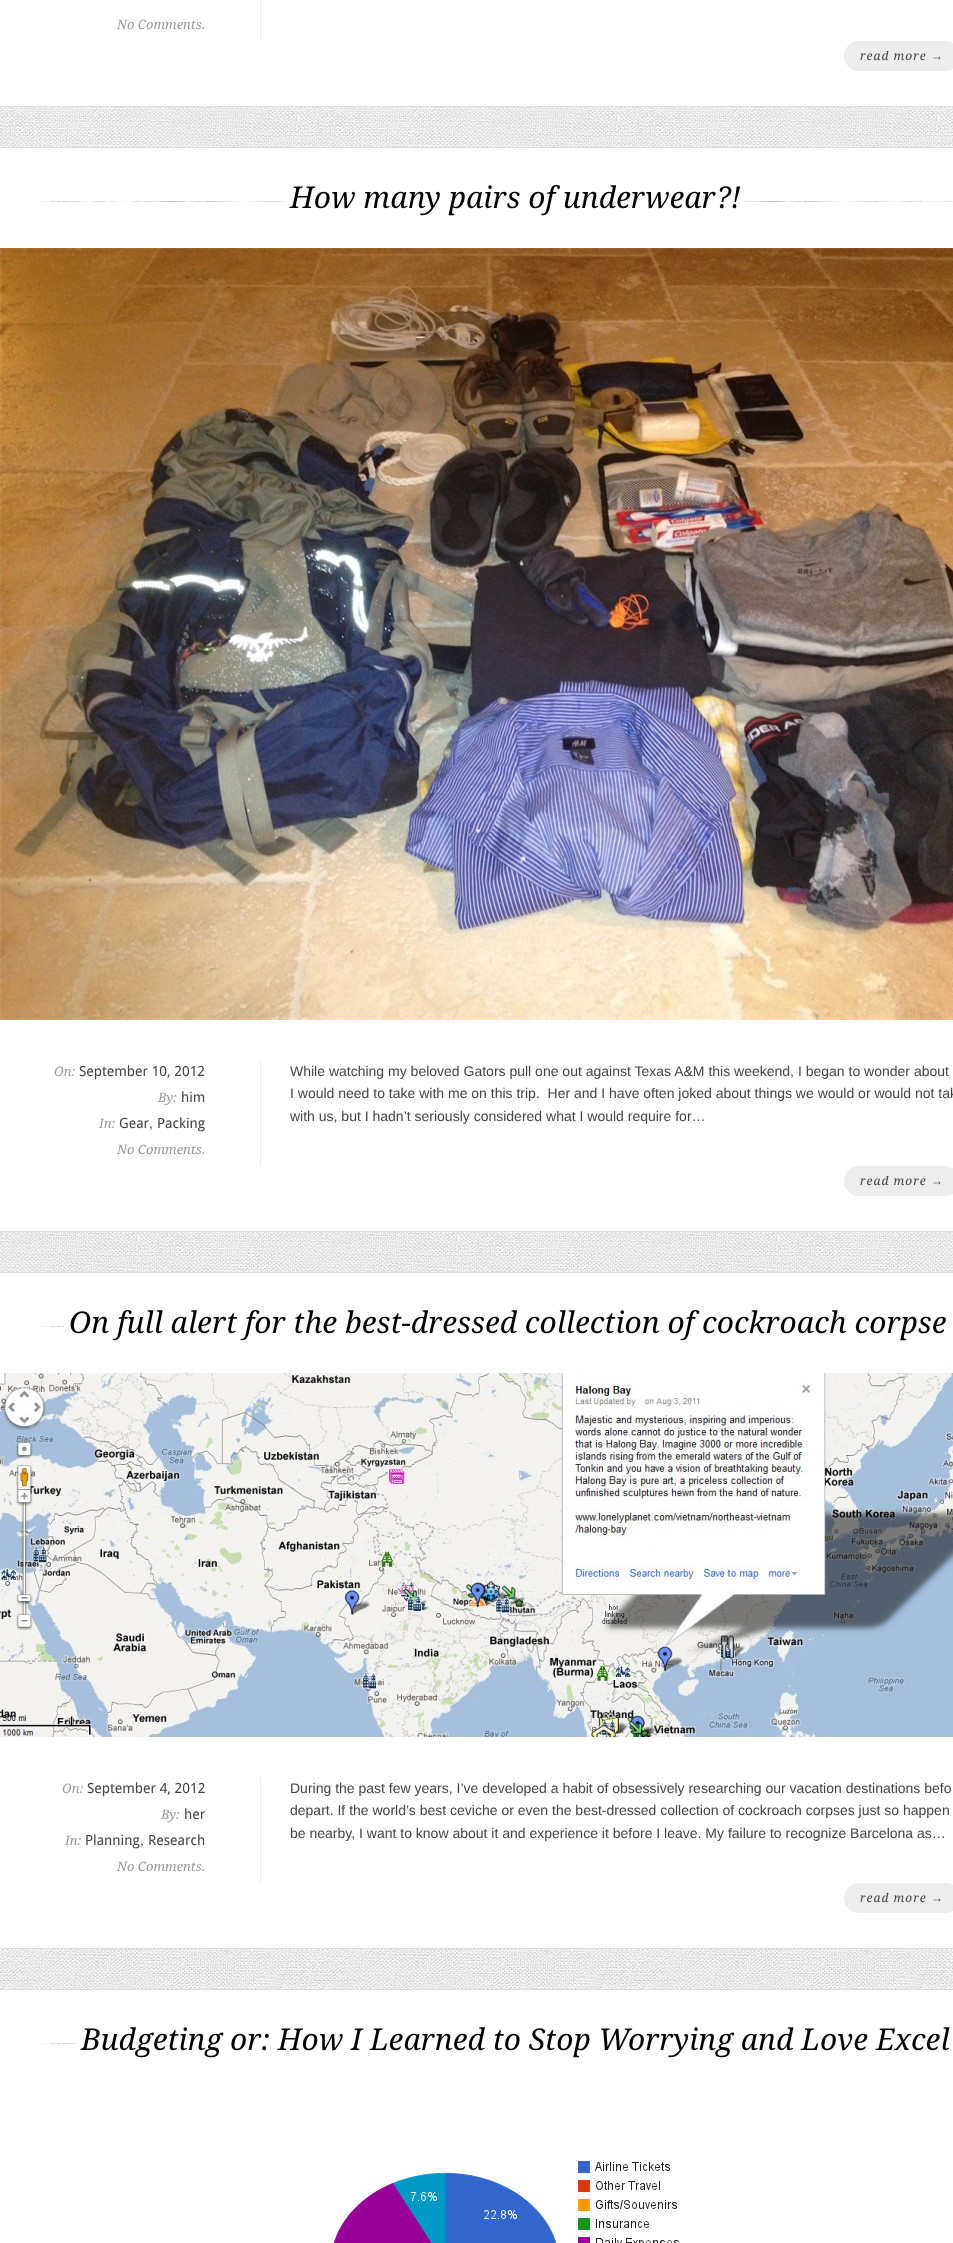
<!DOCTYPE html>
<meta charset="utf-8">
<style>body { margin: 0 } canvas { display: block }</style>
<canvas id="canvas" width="953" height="2243"></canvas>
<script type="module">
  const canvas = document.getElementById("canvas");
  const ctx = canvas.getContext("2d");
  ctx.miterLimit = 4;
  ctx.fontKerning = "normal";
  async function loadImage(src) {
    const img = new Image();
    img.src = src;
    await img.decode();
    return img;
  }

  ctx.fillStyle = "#ffffff";
  ctx.fillRect(0, 0, 953, 2243);
  ctx.drawImage(await loadImage("img1.png"), 0, 107, 953, 1882);
  ctx.fillStyle = "#dddddd";
  ctx.fillRect(0, 106, 953, 1);
  ctx.fillStyle = "#eeeeee";
  ctx.fillRect(260, 0, 1, 41);
  ctx.font = "italic 13px Droid Serif";
  ctx.fillStyle = "#999999";
  ctx.fillText("No Comments.", 117, 29);
  ctx.fillStyle = "#ededed";
  ctx.beginPath();
  ctx.roundRect(844, 41, 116, 30, 15);
  ctx.fill();
  ctx.letterSpacing = "1px";
  ctx.font = "italic 12px Droid Serif";
  ctx.fillStyle = "#444444";
  ctx.fillText("read more", 860, 60);
  ctx.font = "italic 12px Liberation Serif";
  ctx.fillText("→", 931, 60);
  ctx.fillStyle = "#ffffff";
  ctx.fillRect(0, 148, 953, 1083);
  ctx.fillStyle = "#dddddd";
  ctx.fillRect(0, 147, 953, 1);
  ctx.fillRect(0, 1231, 953, 1);
  ctx.drawImage(await loadImage("img2.png"), 40, 201, 913, 1);
  ctx.fillStyle = "#ffffff";
  ctx.fillRect(285, 201, 460, 1);
  ctx.letterSpacing = "0px";
  ctx.font = "italic 30px Droid Serif";
  ctx.fillStyle = "#000000";
  ctx.fillText("How many pairs of underwear?!", 290, 208);
  ctx.drawImage(await loadImage("img3.png"), 0, 248, 953, 772);
  ctx.fillStyle = "#eeeeee";
  ctx.fillRect(260, 1060, 1, 106);
  ctx.font = "italic 13px Droid Serif";
  ctx.fillStyle = "#999999";
  ctx.fillText("On:", 54, 1076);
  ctx.font = "14px Droid Sans";
  ctx.fillStyle = "#444444";
  ctx.fillText("September 10, 2012", 79, 1076);
  ctx.font = "italic 13px Droid Serif";
  ctx.fillStyle = "#999999";
  ctx.fillText("By:", 158, 1102);
  ctx.font = "14px Droid Sans";
  ctx.fillStyle = "#444444";
  ctx.fillText("him", 181, 1102);
  ctx.font = "italic 13px Droid Serif";
  ctx.fillStyle = "#999999";
  ctx.fillText("In:", 99, 1128);
  ctx.font = "14px Droid Sans";
  ctx.fillStyle = "#444444";
  ctx.fillText("Gear", 119, 1128);
  ctx.font = "14px Liberation Sans";
  ctx.fillText(",", 149, 1128);
  ctx.font = "14px Droid Sans";
  ctx.fillText("Packing", 157, 1128);
  ctx.font = "italic 13px Droid Serif";
  ctx.fillStyle = "#999999";
  ctx.fillText("No Comments.", 117, 1154);
  ctx.font = "14px Liberation Sans";
  ctx.fillStyle = "#444444";
  ctx.fillText("While watching my beloved Gators pull one out against Texas A&M this weekend, I began to wonder about", 290, 1076);
  ctx.fillText("I would need to take with me on this trip.  Her and I have often joked about things we would or would not tak", 290, 1098);
  ctx.fillText("with us, but I hadn’t seriously considered what I would require for…", 290, 1121);
  ctx.fillStyle = "#ededed";
  ctx.beginPath();
  ctx.roundRect(844, 1166, 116, 30, 15);
  ctx.fill();
  ctx.letterSpacing = "1px";
  ctx.font = "italic 12px Droid Serif";
  ctx.fillStyle = "#444444";
  ctx.fillText("read more", 860, 1185);
  ctx.font = "italic 12px Liberation Serif";
  ctx.fillText("→", 931, 1185);
  ctx.fillStyle = "#ffffff";
  ctx.fillRect(0, 1273, 953, 675);
  ctx.fillStyle = "#dddddd";
  ctx.fillRect(0, 1272, 953, 1);
  ctx.fillRect(0, 1948, 953, 1);
  ctx.drawImage(await loadImage("img4.png"), 40, 1326, 24, 1);
  ctx.letterSpacing = "0px";
  ctx.font = "italic 30px Droid Serif";
  ctx.fillStyle = "#000000";
  ctx.fillText("On full alert for the best-dressed collection of cockroach corpse", 69, 1333);
  ctx.drawImage(await loadImage("img5.png"), 0, 1373, 953, 364);
  ctx.fillStyle = "#eeeeee";
  ctx.fillRect(260, 1777, 1, 106);
  ctx.font = "italic 13px Droid Serif";
  ctx.fillStyle = "#999999";
  ctx.fillText("On:", 62, 1793);
  ctx.font = "14px Droid Sans";
  ctx.fillStyle = "#444444";
  ctx.fillText("September 4, 2012", 87, 1793);
  ctx.font = "italic 13px Droid Serif";
  ctx.fillStyle = "#999999";
  ctx.fillText("By:", 161, 1819);
  ctx.font = "14px Droid Sans";
  ctx.fillStyle = "#444444";
  ctx.fillText("her", 184, 1819);
  ctx.font = "italic 13px Droid Serif";
  ctx.fillStyle = "#999999";
  ctx.fillText("In:", 65, 1845);
  ctx.font = "14px Droid Sans";
  ctx.fillStyle = "#444444";
  ctx.fillText("Planning", 85, 1845);
  ctx.font = "14px Liberation Sans";
  ctx.fillText(",", 140, 1845);
  ctx.font = "14px Droid Sans";
  ctx.fillText("Research", 148, 1845);
  ctx.font = "italic 13px Droid Serif";
  ctx.fillStyle = "#999999";
  ctx.fillText("No Comments.", 117, 1871);
  ctx.font = "14px Liberation Sans";
  ctx.fillStyle = "#444444";
  ctx.fillText("During the past few years, I’ve developed a habit of obsessively researching our vacation destinations befo", 290, 1793);
  ctx.fillText("depart. If the world’s best ceviche or even the best-dressed collection of cockroach corpses just so happen", 290, 1815);
  ctx.fillText("be nearby, I want to know about it and experience it before I leave. My failure to recognize Barcelona as…", 290, 1838);
  ctx.fillStyle = "#ededed";
  ctx.beginPath();
  ctx.roundRect(844, 1883, 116, 30, 15);
  ctx.fill();
  ctx.letterSpacing = "1px";
  ctx.font = "italic 12px Droid Serif";
  ctx.fillStyle = "#444444";
  ctx.fillText("read more", 860, 1902);
  ctx.font = "italic 12px Liberation Serif";
  ctx.fillText("→", 931, 1902);
  ctx.fillStyle = "#dddddd";
  ctx.fillRect(0, 1989, 953, 1);
  ctx.drawImage(await loadImage("img6.png"), 40, 2043, 36, 1);
  ctx.letterSpacing = "0px";
  ctx.font = "italic 30px Droid Serif";
  ctx.fillStyle = "#000000";
  ctx.fillText("Budgeting or: How I Learned to Stop Worrying and Love Excel", 81, 2050);
  ctx.drawImage(await loadImage("img7.png"), 333, 2161, 346, 82);
</script>
